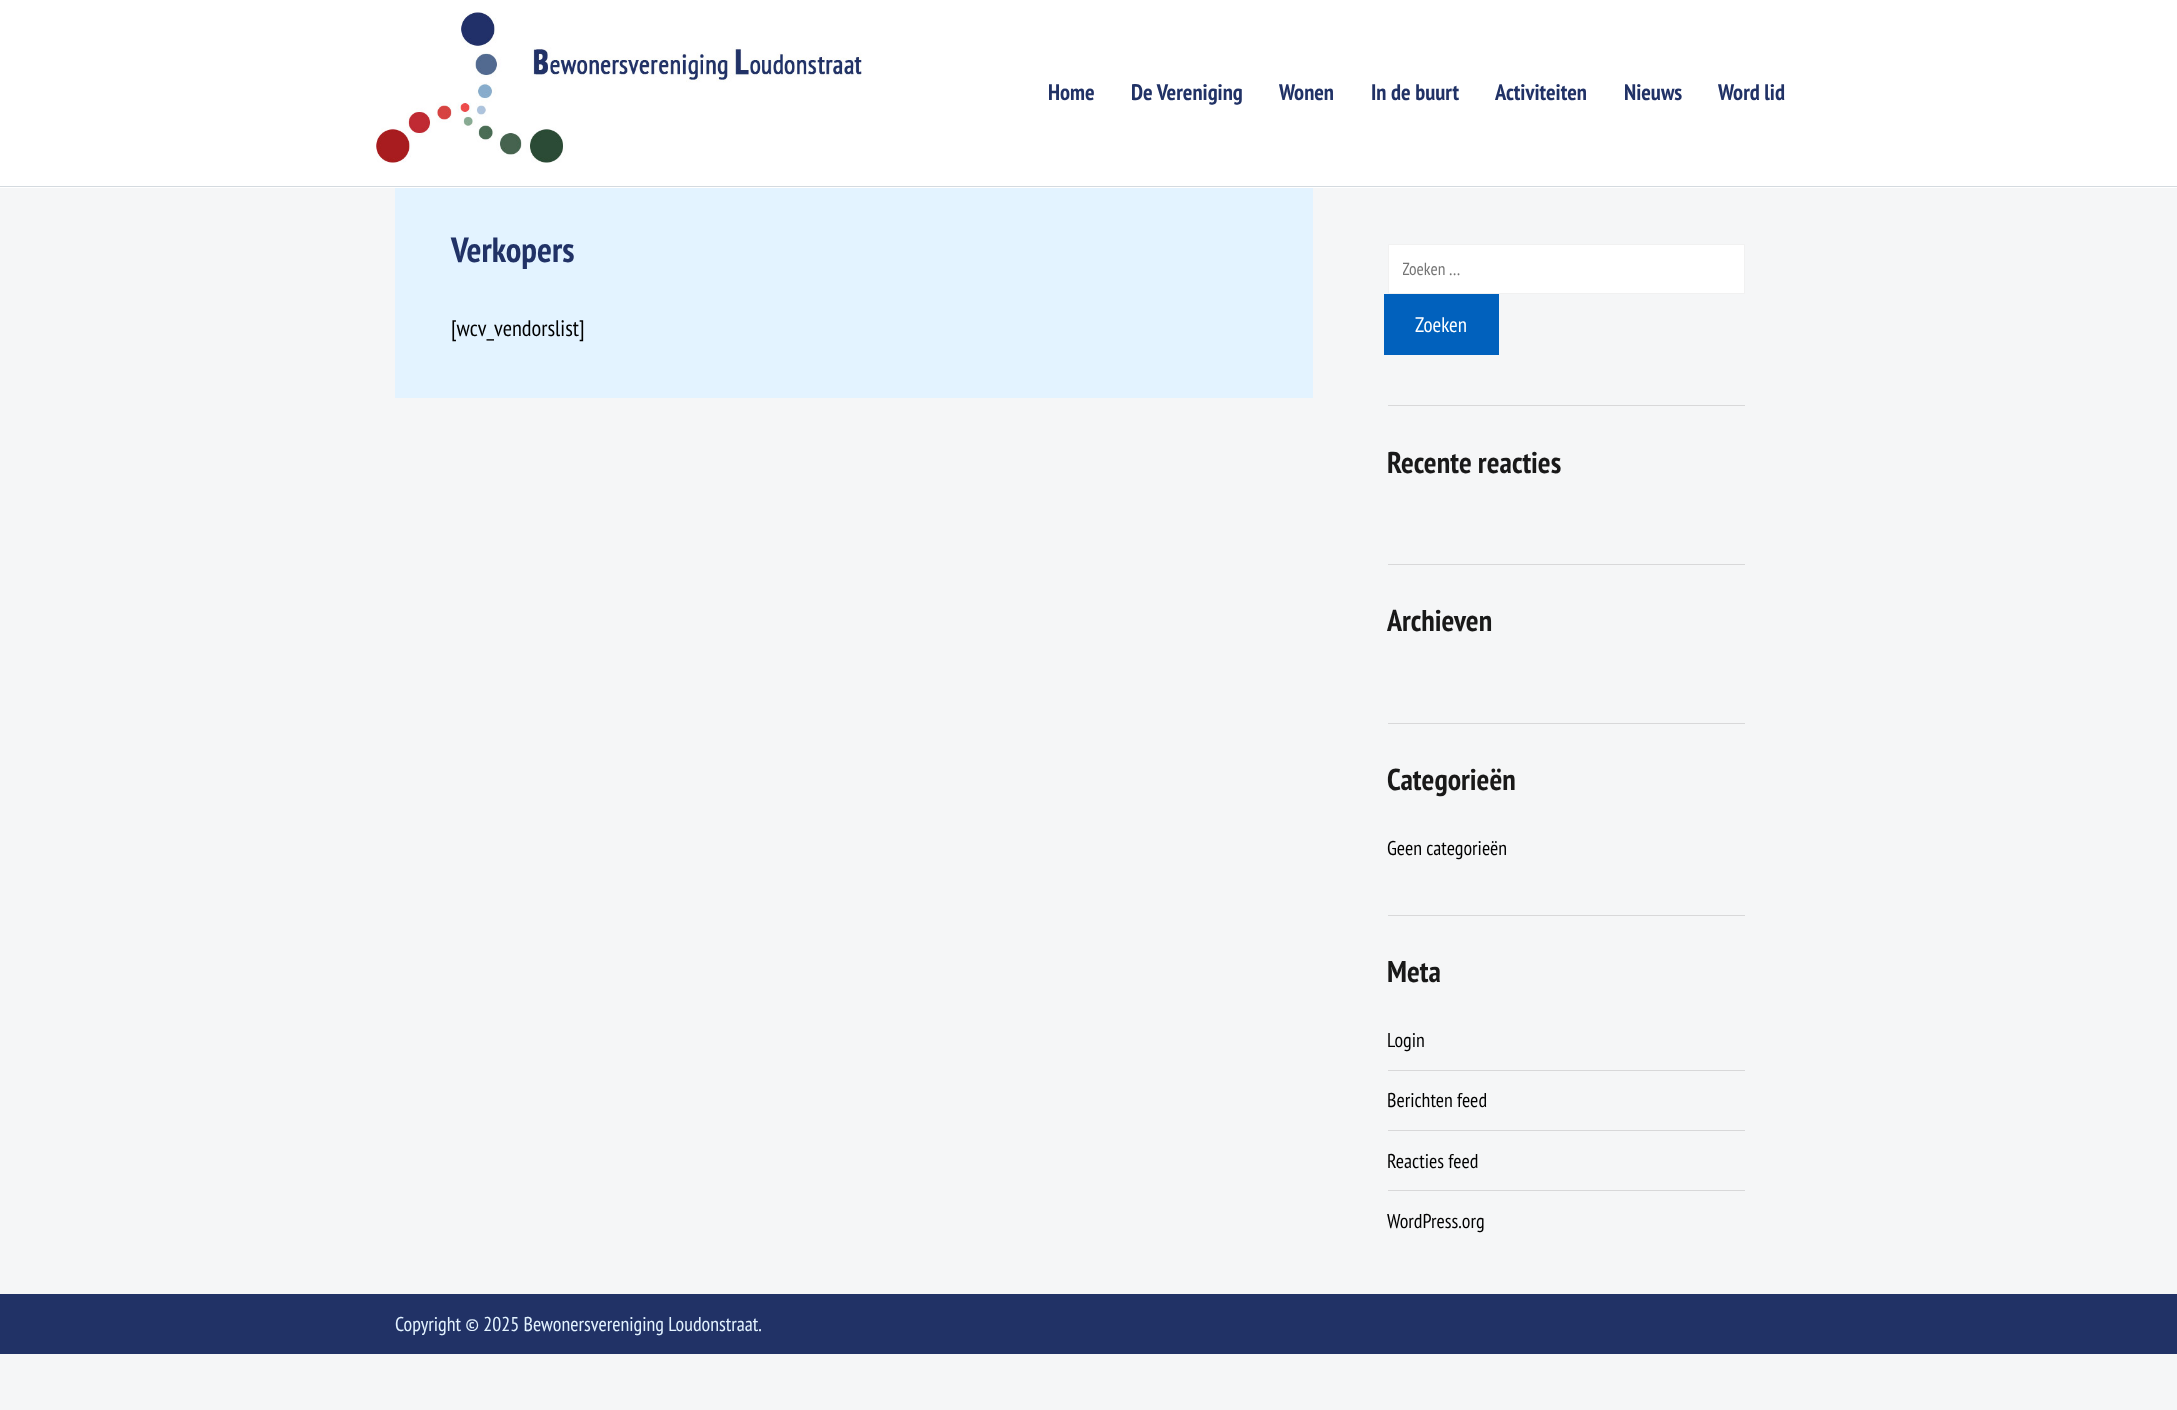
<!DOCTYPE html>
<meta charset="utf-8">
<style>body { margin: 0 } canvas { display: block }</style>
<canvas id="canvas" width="2177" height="1410"></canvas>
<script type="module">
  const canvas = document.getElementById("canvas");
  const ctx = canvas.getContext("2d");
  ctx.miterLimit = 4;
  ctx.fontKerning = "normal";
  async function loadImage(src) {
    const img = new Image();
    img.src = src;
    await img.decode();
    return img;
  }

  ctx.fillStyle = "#f5f6f7";
  ctx.fillRect(0, 0, 2177, 1410);
  ctx.fillStyle = "#ffffff";
  ctx.fillRect(0, 0, 2177, 188);
  ctx.fillStyle = "#d4dadf";
  ctx.fillRect(0, 186, 2177, 1);
  ctx.drawImage(await loadImage("img1.png"), 376, 12, 486, 151);
  ctx.font = "bold 22.5px PT Sans Narrow";
  ctx.fillStyle = "#213266";
  ctx.fillText("Home", 1048, 100);
  ctx.fillText("De Vereniging", 1131, 100);
  ctx.fillText("Wonen", 1279, 100);
  ctx.fillText("In de buurt", 1371, 100);
  ctx.fillText("Activiteiten", 1495, 100);
  ctx.fillText("Nieuws", 1624, 100);
  ctx.fillText("Word lid", 1718, 100);
  ctx.fillStyle = "#e3f3ff";
  ctx.fillRect(395, 188, 918, 210);
  ctx.font = "bold 35px PT Sans Narrow";
  ctx.fillStyle = "#213266";
  ctx.fillText("Verkopers", 451, 262);
  ctx.font = "22.5px PT Sans Narrow";
  ctx.fillStyle = "#000000";
  ctx.fillText("[wcv_vendorslist]", 451, 336);
  ctx.fillStyle = "#d8d8d9";
  ctx.fillRect(1388, 405, 357, 1);
  ctx.fillStyle = "#ffffff";
  ctx.beginPath();
  ctx.rect(1388.5, 244.5, 356, 49);
  ctx.fill();
  ctx.strokeStyle = "#f1f1f1";
  ctx.stroke();
  ctx.save();
  ctx.beginPath();
  ctx.rect(1403, 258, 310, 22);
  ctx.clip();
  ctx.font = "17.5px PT Sans Narrow";
  ctx.fillStyle = "#757575";
  ctx.fillText("Zoeken …", 1402, 275);
  ctx.restore();
  ctx.fillStyle = "#0161bd";
  ctx.fillRect(1384, 294, 115, 61);
  ctx.font = "21px PT Sans Narrow";
  ctx.fillStyle = "#ffffff";
  ctx.fillText("Zoeken", 1415, 332);
  ctx.fillStyle = "#d8d8d9";
  ctx.fillRect(1388, 564, 357, 1);
  ctx.font = "bold 30px PT Sans Narrow";
  ctx.fillStyle = "#191919";
  ctx.fillText("Recente reacties", 1387, 473);
  ctx.fillStyle = "#d8d8d9";
  ctx.fillRect(1388, 723, 357, 1);
  ctx.fillStyle = "#191919";
  ctx.fillText("Archieven", 1387, 631);
  ctx.fillStyle = "#d8d8d9";
  ctx.fillRect(1388, 915, 357, 1);
  ctx.fillStyle = "#191919";
  ctx.fillText("Categorieën", 1387, 790);
  ctx.font = "20px PT Sans Narrow";
  ctx.fillStyle = "#000000";
  ctx.fillText("Geen categorieën", 1387, 855);
  ctx.font = "bold 30px PT Sans Narrow";
  ctx.fillStyle = "#191919";
  ctx.fillText("Meta", 1387, 982);
  ctx.font = "20px PT Sans Narrow";
  ctx.fillStyle = "#000000";
  ctx.fillText("Login", 1387, 1047);
  ctx.fillStyle = "#d8d8d9";
  ctx.fillRect(1388, 1070, 357, 1);
  ctx.fillStyle = "#000000";
  ctx.fillText("Berichten feed", 1387, 1107);
  ctx.fillStyle = "#d8d8d9";
  ctx.fillRect(1388, 1130, 357, 1);
  ctx.fillStyle = "#000000";
  ctx.fillText("Reacties feed", 1387, 1168);
  ctx.fillStyle = "#d8d8d9";
  ctx.fillRect(1388, 1190, 357, 1);
  ctx.fillStyle = "#000000";
  ctx.fillText("WordPress.org", 1387, 1228);
  ctx.fillStyle = "#213266";
  ctx.fillRect(0, 1294, 2177, 60);
  ctx.fillStyle = "#e3f3ff";
  ctx.fillText("Copyright © 2025 Bewonersvereniging Loudonstraat.", 395, 1331);
</script>
